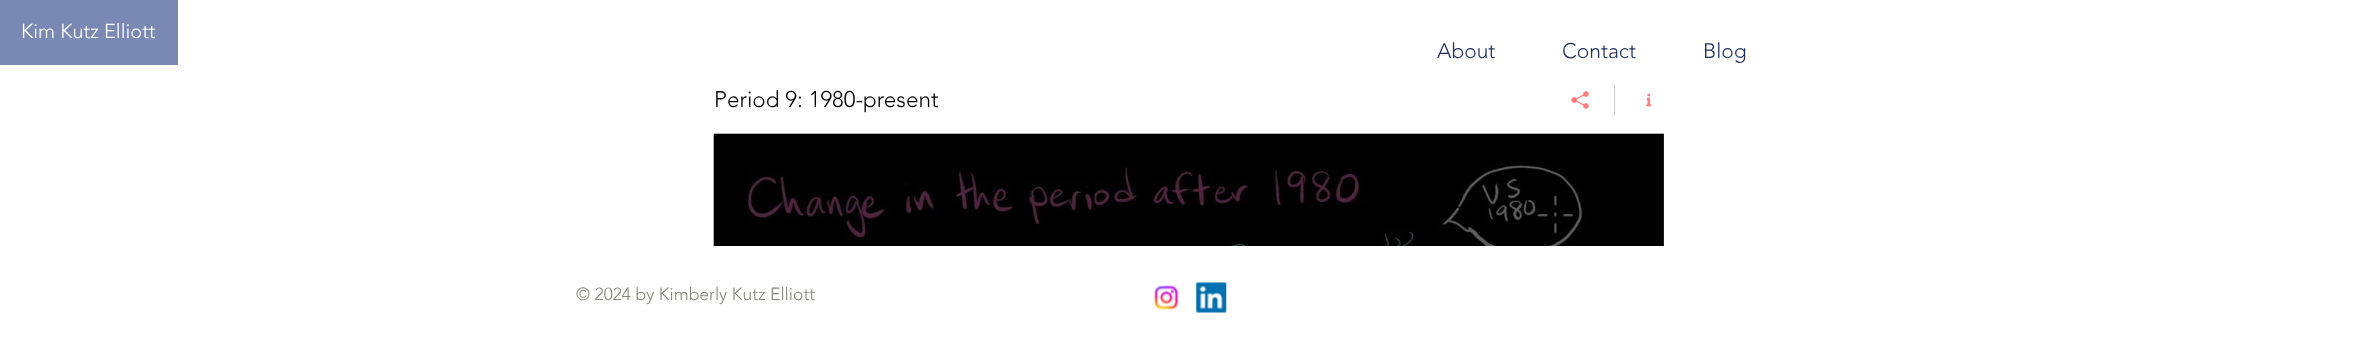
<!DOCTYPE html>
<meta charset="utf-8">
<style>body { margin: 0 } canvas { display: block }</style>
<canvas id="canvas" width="2377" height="349"></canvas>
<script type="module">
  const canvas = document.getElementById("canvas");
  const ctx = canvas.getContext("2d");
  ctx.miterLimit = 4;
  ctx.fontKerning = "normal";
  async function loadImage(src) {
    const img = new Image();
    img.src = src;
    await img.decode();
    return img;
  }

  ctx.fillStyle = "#ffffff";
  ctx.fillRect(0, 0, 2377, 349);
  ctx.fillStyle = "#7a88b4";
  ctx.fillRect(0, 0, 178, 65);
  ctx.font = "300 20px 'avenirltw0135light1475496'";
  ctx.fillStyle = "#ffffff";
  ctx.fillText("Kim Kutz Elliott", 21, 38);
  ctx.font = "300 21px 'avenirltw0135light1475496'";
  ctx.fillStyle = "#21305f";
  ctx.fillText("About", 1437, 58);
  ctx.fillText("Contact", 1562, 58);
  ctx.fillText("Blog", 1703, 58);
  ctx.font = "300 22.5px 'avenirltw0135light1475496'";
  ctx.fillStyle = "#000000";
  ctx.fillText("Period 9: 1980-present", 714, 107);
  ctx.fillStyle = "#cccccc";
  ctx.fillRect(1614, 85, 1, 30);
  ctx.drawImage(await loadImage("img1.png"), 1571, 91, 18, 18);
  ctx.drawImage(await loadImage("img2.png"), 1646, 93, 6, 14);
  ctx.drawImage(await loadImage("img3.png"), 713, 133, 951, 113);
  ctx.drawImage(await loadImage("img4.png"), 713, 133, 951, 113);
  ctx.font = "300 17.5px 'avenirltw0135light1475496'";
  ctx.fillStyle = "#85857e";
  ctx.fillText("© 2024 by Kimberly Kutz Elliott", 576, 300);
  ctx.drawImage(await loadImage("img5.png"), 1154, 285, 25, 25);
  ctx.drawImage(await loadImage("img6.png"), 1196, 282, 31, 31);
</script>
